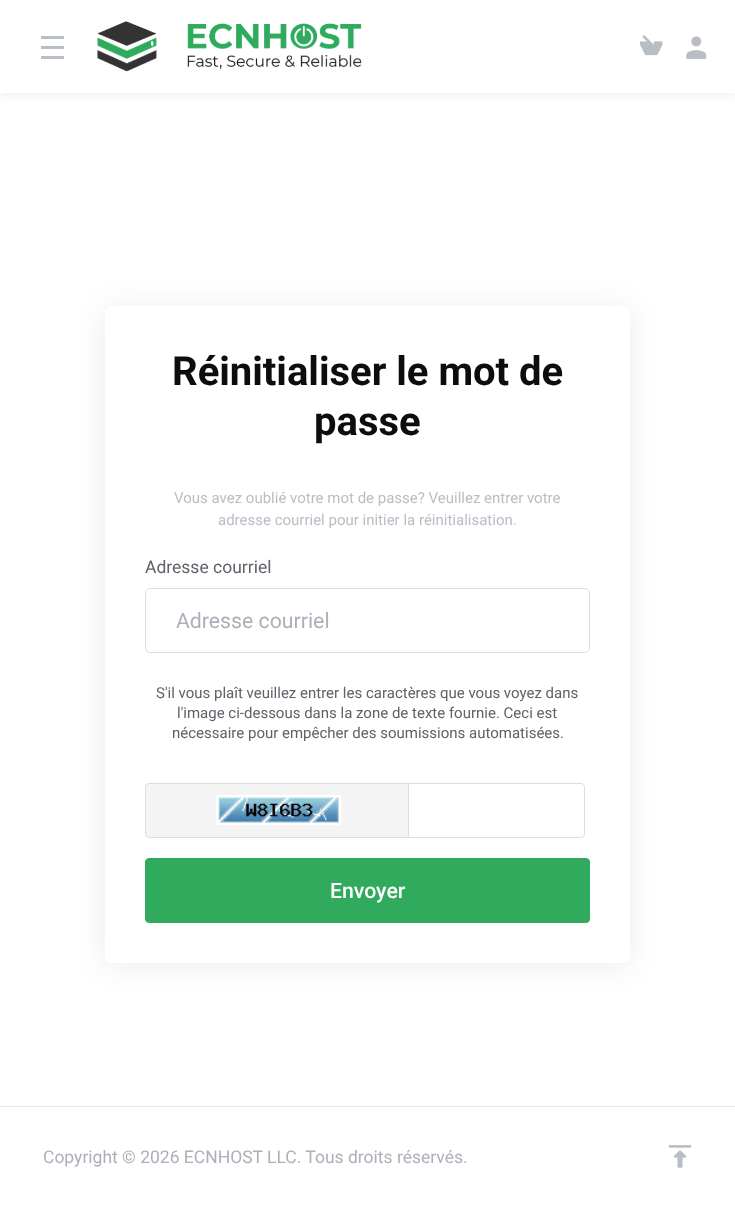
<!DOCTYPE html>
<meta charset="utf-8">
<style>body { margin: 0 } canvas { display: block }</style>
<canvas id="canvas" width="735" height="1205"></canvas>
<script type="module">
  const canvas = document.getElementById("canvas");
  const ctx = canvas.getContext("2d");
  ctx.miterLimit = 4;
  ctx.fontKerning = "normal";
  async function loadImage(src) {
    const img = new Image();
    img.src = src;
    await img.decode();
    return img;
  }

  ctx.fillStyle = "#ffffff";
  ctx.fillRect(0, 0, 735, 1205);
  ctx.fillStyle = "rgba(0, 14, 69, 0.08)";
  ctx.filter = "blur(5px)";
  ctx.beginPath();
  ctx.rect(0, 3, 735, 92);
  ctx.fill();
  ctx.filter = "none";
  ctx.fillStyle = "#ffffff";
  ctx.fillRect(0, 0, 735, 93);
  ctx.fillStyle = "#b9bdc5";
  ctx.fillRect(41, 36, 23, 3);
  ctx.fillRect(41, 46, 23, 3);
  ctx.fillRect(41, 56, 23, 3);
  ctx.drawImage(await loadImage("img1.png"), 97, 21, 265, 51);
  ctx.drawImage(await loadImage("img2.png"), 640, 35, 23, 21);
  ctx.drawImage(await loadImage("img3.png"), 686, 36, 21, 23);
  ctx.fillStyle = "rgba(0, 0, 0, 0.08)";
  ctx.filter = "blur(15px)";
  ctx.beginPath();
  ctx.roundRect(105, 309, 525, 656, 5);
  ctx.fill();
  ctx.filter = "none";
  ctx.fillStyle = "rgba(0, 0, 0, 0.1)";
  ctx.filter = "blur(0.5px)";
  ctx.beginPath();
  ctx.roundRect(105, 306, 525, 657, 5);
  ctx.fill();
  ctx.filter = "none";
  ctx.fillStyle = "#ffffff";
  ctx.beginPath();
  ctx.roundRect(105, 306, 525, 657, 5);
  ctx.fill();
  ctx.font = "bold 40px Roboto";
  ctx.fillStyle = "#0c0d0f";
  ctx.fillText("Réinitialiser le mot de", 172, 385);
  ctx.fillText("passe", 314, 435);
  ctx.font = "15px Roboto";
  ctx.fillStyle = "#b9bdc5";
  ctx.fillText("Vous avez oublié votre mot de passe? Veuillez entrer votre", 174, 503);
  ctx.fillText("adresse courriel pour initier la réinitialisation.", 218, 525);
  ctx.font = "17.5px Roboto";
  ctx.fillStyle = "#5f6269";
  ctx.fillText("Adresse courriel", 145, 573);
  ctx.beginPath();
  ctx.roundRect(145.5, 588.5, 444, 64, 4.5);
  ctx.strokeStyle = "#dcdee2";
  ctx.stroke();
  ctx.font = "21.25px Roboto";
  ctx.fillStyle = "#acb0b8";
  ctx.fillText("Adresse courriel", 176, 628);
  ctx.font = "15px Roboto";
  ctx.fillStyle = "#5f6269";
  ctx.fillText("S'il vous plaît veuillez entrer les caractères que vous voyez dans", 156, 698);
  ctx.fillText("l'image ci-dessous dans la zone de texte fournie. Ceci est", 177, 718);
  ctx.fillText("nécessaire pour empêcher des soumissions automatisées.", 172, 738);
  ctx.fillStyle = "#f4f4f4";
  ctx.beginPath();
  ctx.roundRect(145.5, 783.5, 267, 54, [3.5, 0, 0, 3.5]);
  ctx.fill();
  ctx.stroke();
  ctx.drawImage(await loadImage("img4.png"), 216, 795, 125, 30);
  ctx.fillStyle = "#ffffff";
  ctx.beginPath();
  ctx.roundRect(408.5, 783.5, 176, 54, [0, 3.5, 3.5, 0]);
  ctx.fill();
  ctx.stroke();
  ctx.fillStyle = "#30ab5e";
  ctx.beginPath();
  ctx.roundRect(145.5, 858.5, 444, 64, 3.5);
  ctx.fill();
  ctx.strokeStyle = "#30ab5e";
  ctx.stroke();
  ctx.font = "500 21.25px Roboto";
  ctx.fillStyle = "#ffffff";
  ctx.fillText("Envoyer", 330, 898);
  ctx.fillStyle = "#e6e8ec";
  ctx.fillRect(0, 1106, 735, 1);
  ctx.font = "17.5px Roboto";
  ctx.fillStyle = "#acb0b8";
  ctx.fillText("Copyright © 2026 ECNHOST LLC. Tous droits réservés.", 43, 1163);
  ctx.drawImage(await loadImage("img5.png"), 668, 1145, 24, 23);
</script>
